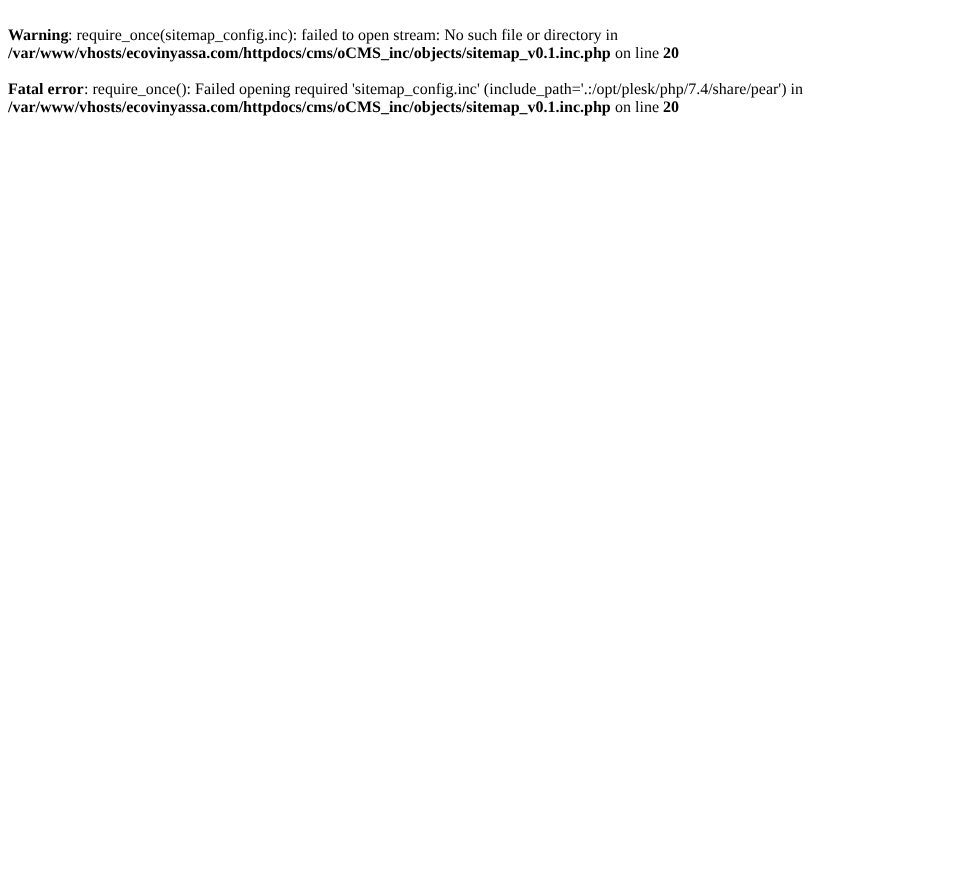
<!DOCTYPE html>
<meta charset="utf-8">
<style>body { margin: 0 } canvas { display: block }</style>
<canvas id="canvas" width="965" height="875"></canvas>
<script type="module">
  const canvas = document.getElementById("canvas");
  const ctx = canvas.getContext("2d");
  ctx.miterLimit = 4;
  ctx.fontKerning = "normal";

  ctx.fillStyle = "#ffffff";
  ctx.fillRect(0, 0, 965, 875);
  ctx.font = "bold 16px Liberation Serif";
  ctx.fillStyle = "#000000";
  ctx.fillText("Warning", 8, 40);
  ctx.font = "16px Liberation Serif";
  ctx.fillText(": require_once(sitemap_config.inc): failed to open stream: No such file or directory in", 68, 40);
  ctx.font = "bold 16px Liberation Serif";
  ctx.fillText("/var/www/vhosts/ecovinyassa.com/httpdocs/cms/oCMS_inc/objects/sitemap_v0.1.inc.php", 8, 58);
  ctx.font = "16px Liberation Serif";
  ctx.fillText("on line", 615, 58);
  ctx.font = "bold 16px Liberation Serif";
  ctx.fillText("20", 663, 58);
  ctx.fillText("Fatal error", 8, 94);
  ctx.font = "16px Liberation Serif";
  ctx.fillText(": require_once(): Failed opening required 'sitemap_config.inc' (include_path='.:/opt/plesk/php/7.4/share/pear') in", 84, 94);
  ctx.font = "bold 16px Liberation Serif";
  ctx.fillText("/var/www/vhosts/ecovinyassa.com/httpdocs/cms/oCMS_inc/objects/sitemap_v0.1.inc.php", 8, 112);
  ctx.font = "16px Liberation Serif";
  ctx.fillText("on line", 615, 112);
  ctx.font = "bold 16px Liberation Serif";
  ctx.fillText("20", 663, 112);
</script>
